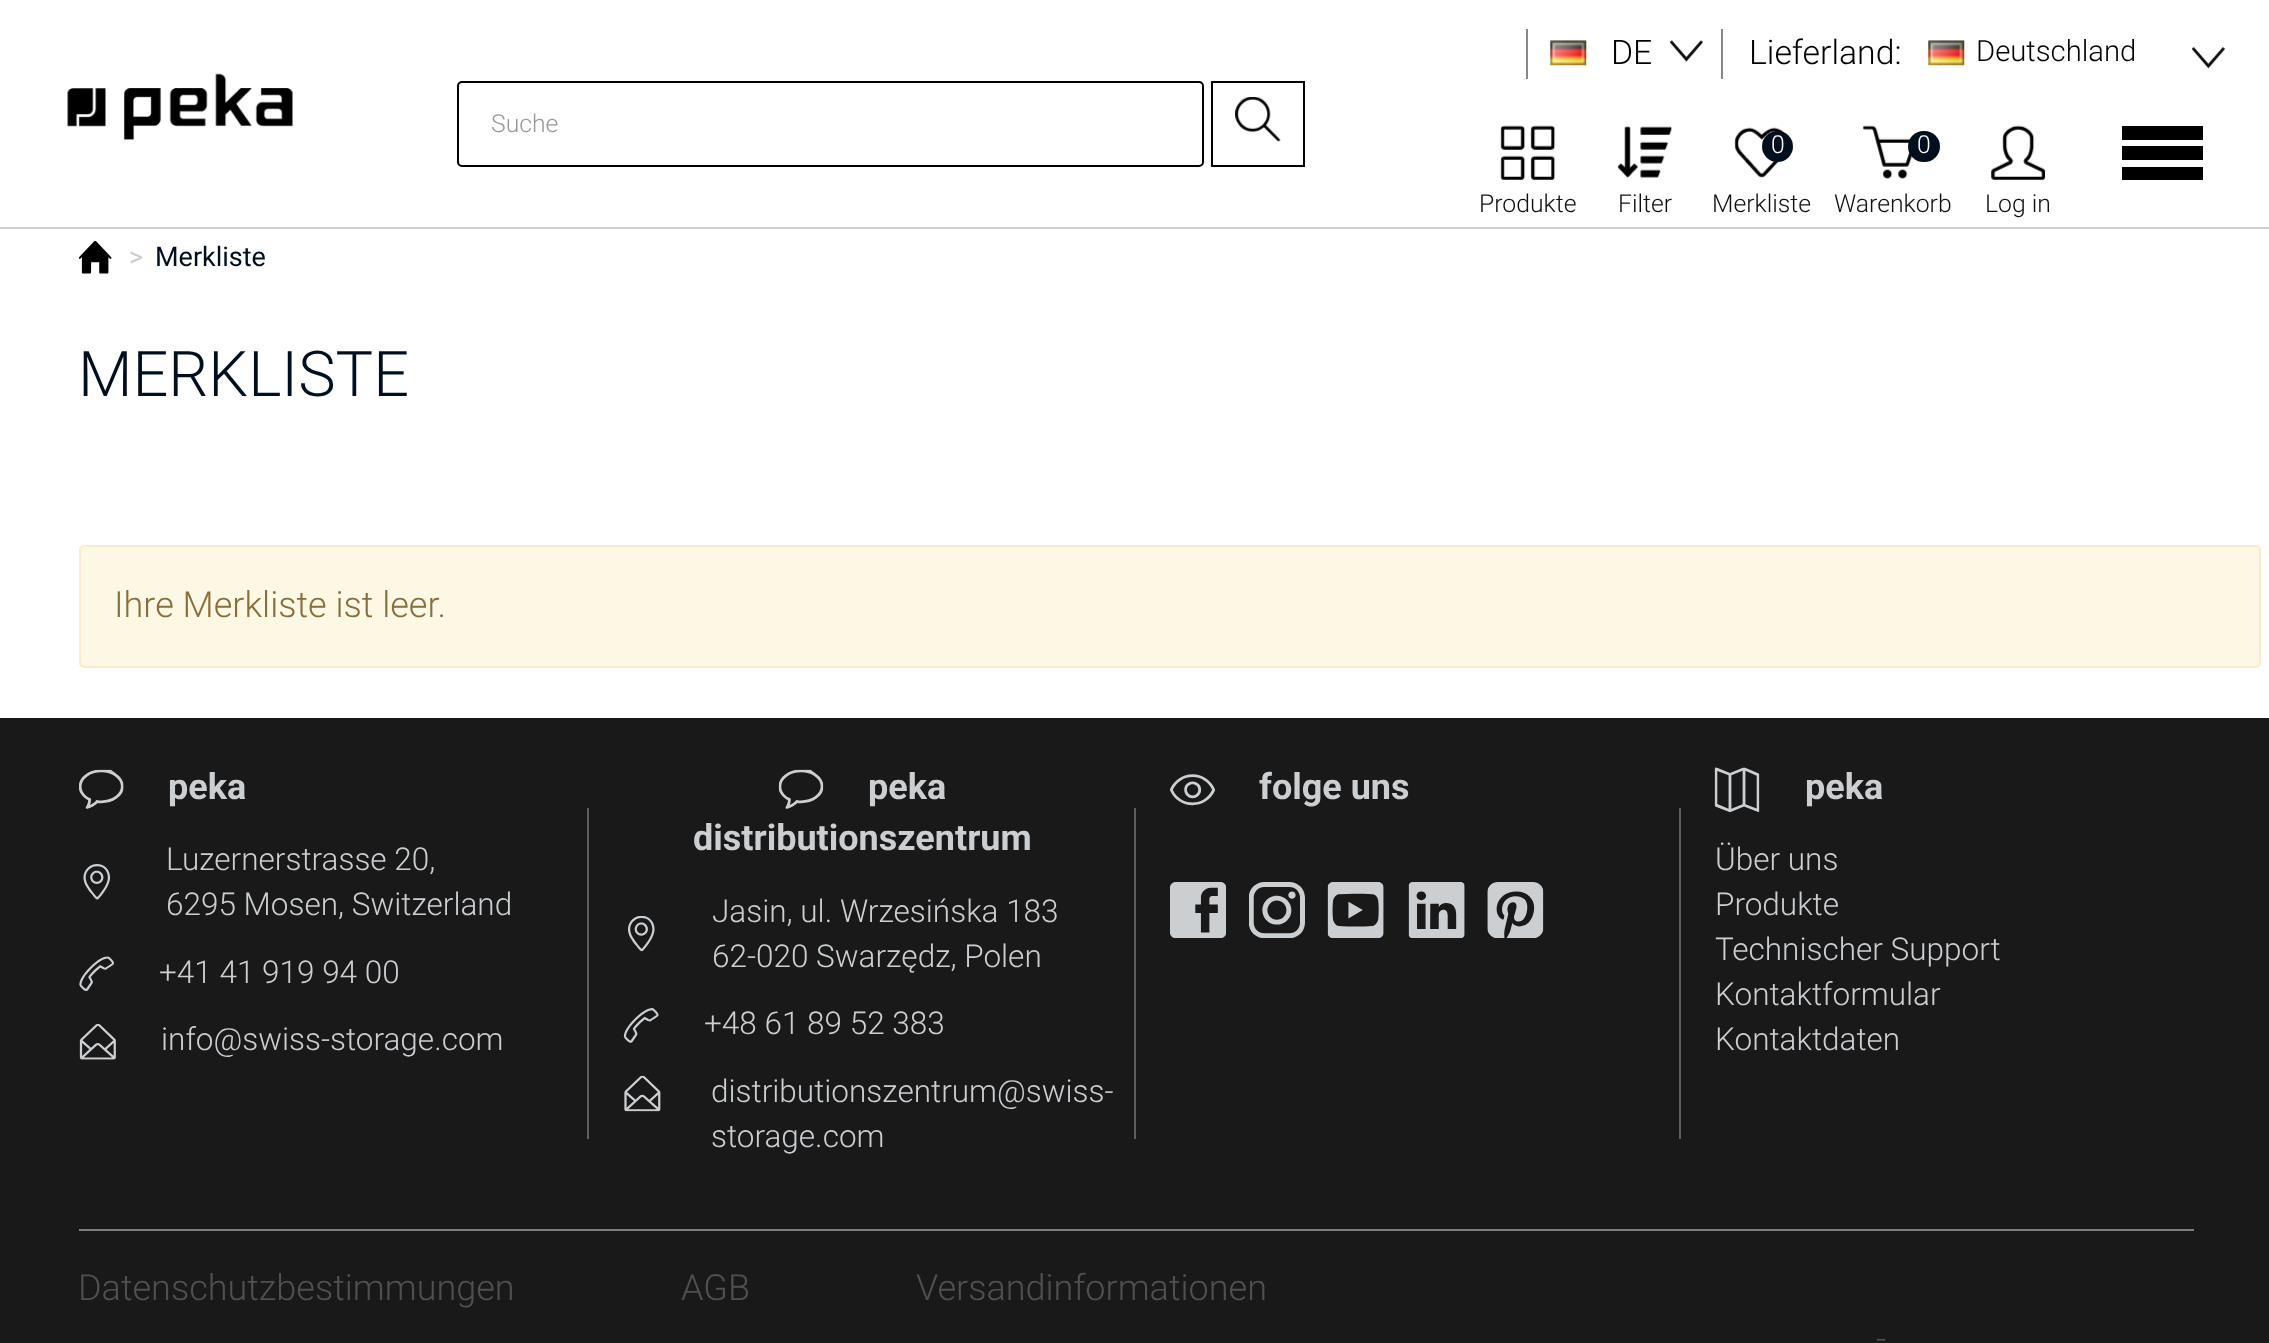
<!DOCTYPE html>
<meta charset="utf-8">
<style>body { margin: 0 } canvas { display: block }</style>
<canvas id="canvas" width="2269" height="1343"></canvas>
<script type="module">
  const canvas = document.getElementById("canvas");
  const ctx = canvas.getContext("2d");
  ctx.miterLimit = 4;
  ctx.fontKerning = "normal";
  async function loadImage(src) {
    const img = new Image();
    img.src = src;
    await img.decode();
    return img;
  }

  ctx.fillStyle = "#ffffff";
  ctx.fillRect(0, 0, 2269, 1343);
  ctx.fillStyle = "#cccfd2";
  ctx.fillRect(0, 227, 2269, 2);
  ctx.fillStyle = "#878789";
  ctx.fillRect(1721, 29, 2, 50);
  ctx.fillRect(1526, 29, 2, 50);
  ctx.drawImage(await loadImage("img1.png"), 1550, 40, 37, 26);
  ctx.font = "300 33.75px Roboto";
  ctx.fillStyle = "#000000";
  ctx.fillText("DE", 1611, 64);
  ctx.drawImage(await loadImage("img2.png"), 1670, 40, 33, 22);
  ctx.fillText("Lieferland:", 1749, 64);
  ctx.drawImage(await loadImage("img1.png"), 1928, 40, 37, 26);
  ctx.font = "300 29.25px Roboto";
  ctx.fillText("Deutschland", 1976, 61);
  ctx.drawImage(await loadImage("img3.png"), 2192, 47, 33, 22);
  ctx.drawImage(await loadImage("img4.png"), 67, 73, 226, 67);
  ctx.beginPath();
  ctx.roundRect(458, 82, 745, 84, 4);
  ctx.strokeStyle = "#000000";
  ctx.lineWidth = 2;
  ctx.stroke();
  ctx.font = "300 24.75px Roboto";
  ctx.fillStyle = "#999999";
  ctx.fillText("Suche", 491, 132);
  ctx.strokeRect(1212, 82, 92, 84);
  ctx.drawImage(await loadImage("img5.png"), 1235, 97, 46, 45);
  ctx.drawImage(await loadImage("img6.png"), 1500, 125, 56, 55);
  ctx.fillStyle = "#100f12";
  ctx.fillText("Produkte", 1479, 212);
  ctx.drawImage(await loadImage("img7.png"), 1617, 126, 55, 52);
  ctx.fillText("Filter", 1618, 212);
  ctx.drawImage(await loadImage("img8.png"), 1734, 127, 54, 51);
  ctx.fillStyle = "#000f1e";
  ctx.beginPath();
  ctx.arc(1777.5, 146.5, 15.5, 0, Math.PI * 2);
  ctx.fill();
  ctx.fillStyle = "#ffffff";
  ctx.fillText("0", 1771, 153);
  ctx.fillStyle = "#100f12";
  ctx.fillText("Merkliste", 1712, 212);
  ctx.drawImage(await loadImage("img9.png"), 1863, 125, 50, 54);
  ctx.fillStyle = "#000f1e";
  ctx.beginPath();
  ctx.roundRect(1908, 131, 32, 31, 15.5);
  ctx.fill();
  ctx.fillStyle = "#ffffff";
  ctx.fillText("0", 1917, 153);
  ctx.fillStyle = "#100f12";
  ctx.fillText("Warenkorb", 1834, 212);
  ctx.drawImage(await loadImage("img10.png"), 1991, 125, 54, 55);
  ctx.fillText("Log in", 1985, 212);
  ctx.fillStyle = "#000000";
  ctx.fillRect(2122, 126, 81, 14);
  ctx.fillRect(2122, 146, 81, 14);
  ctx.fillRect(2122, 167, 81, 13);
  ctx.drawImage(await loadImage("img11.png"), 79, 241, 33, 33);
  ctx.font = "27px Roboto";
  ctx.fillStyle = "#cccccc";
  ctx.fillText(">", 129, 266);
  ctx.fillStyle = "#000f1e";
  ctx.fillText("Merkliste", 155, 266);
  ctx.font = "300 63px Roboto";
  ctx.fillText("MERKLISTE", 78, 396);
  ctx.fillStyle = "#fcf8e3";
  ctx.beginPath();
  ctx.roundRect(80, 546, 2180, 121, 4);
  ctx.fill();
  ctx.strokeStyle = "#faebcc";
  ctx.stroke();
  ctx.font = "300 36px Roboto";
  ctx.fillStyle = "#8a6d3b";
  ctx.fillText("Ihre Merkliste ist leer.", 114, 617);
  ctx.fillStyle = "#191919";
  ctx.fillRect(0, 718, 2269, 625);
  ctx.drawImage(await loadImage("img12.png"), 79, 769, 45, 40);
  ctx.font = "bold 36px Roboto";
  ctx.fillStyle = "#cccfd2";
  ctx.fillText("peka", 168, 799);
  ctx.drawImage(await loadImage("img13.png"), 83, 864, 27, 36);
  ctx.font = "300 31.5px Roboto";
  ctx.fillText("Luzernerstrasse 20,", 166, 870);
  ctx.fillText("6295 Mosen, Switzerland", 166, 915);
  ctx.drawImage(await loadImage("img14.png"), 79, 956, 35, 35);
  ctx.fillText("+41 41 919 94 00", 159, 983);
  ctx.drawImage(await loadImage("img15.png"), 79, 1024, 37, 36);
  ctx.fillText("info@swiss-storage.com", 161, 1050);
  ctx.fillStyle = "#5e5e5e";
  ctx.fillRect(587, 808, 2, 331);
  ctx.drawImage(await loadImage("img16.png"), 778, 769, 46, 40);
  ctx.font = "bold 36px Roboto";
  ctx.fillStyle = "#cccfd2";
  ctx.fillText("peka", 868, 799);
  ctx.fillText("distributionszentrum", 693, 850);
  ctx.fillStyle = "#5e5e5e";
  ctx.fillRect(1134, 808, 2, 331);
  ctx.drawImage(await loadImage("img17.png"), 628, 916, 27, 36);
  ctx.font = "300 31.5px Roboto";
  ctx.fillStyle = "#cccfd2";
  ctx.fillText("Jasin, ul. Wrzesińska 183", 712, 922);
  ctx.fillText("62-020 Swarzędz, Polen", 712, 967);
  ctx.drawImage(await loadImage("img18.png"), 623, 1008, 36, 35);
  ctx.fillText("+48 61 89 52 383", 704, 1034);
  ctx.drawImage(await loadImage("img19.png"), 624, 1075, 37, 37);
  ctx.fillText("distributionszentrum@swiss-", 711, 1102);
  ctx.fillText("storage.com", 711, 1147);
  ctx.drawImage(await loadImage("img20.png"), 1170, 774, 45, 32);
  ctx.font = "bold 36px Roboto";
  ctx.fillText("folge uns", 1259, 799);
  ctx.drawImage(await loadImage("img21.png"), 1170, 882, 56, 56);
  ctx.drawImage(await loadImage("img22.png"), 1249, 882, 56, 56);
  ctx.drawImage(await loadImage("img23.png"), 1327, 882, 57, 56);
  ctx.drawImage(await loadImage("img24.png"), 1408, 882, 57, 56);
  ctx.drawImage(await loadImage("img25.png"), 1487, 882, 57, 56);
  ctx.fillStyle = "#5e5e5e";
  ctx.fillRect(1679, 808, 2, 331);
  ctx.drawImage(await loadImage("img26.png"), 1714, 767, 46, 45);
  ctx.fillStyle = "#cccfd2";
  ctx.fillText("peka", 1805, 799);
  ctx.font = "300 31.5px Roboto";
  ctx.fillText("Über uns", 1715, 870);
  ctx.fillText("Produkte", 1715, 915);
  ctx.fillText("Technischer Support", 1715, 960);
  ctx.fillText("Kontaktformular", 1715, 1005);
  ctx.fillText("Kontaktdaten", 1715, 1050);
  ctx.fillStyle = "#7f7f7f";
  ctx.fillRect(79, 1229, 2115, 2);
  ctx.font = "300 36px Roboto";
  ctx.fillStyle = "#4f5051";
  ctx.fillText("Datenschutzbestimmungen", 78, 1300);
  ctx.fillText("AGB", 681, 1300);
  ctx.fillText("Versandinformationen", 916, 1300);
  ctx.fillText("-", 1876, 1351);
</script>
